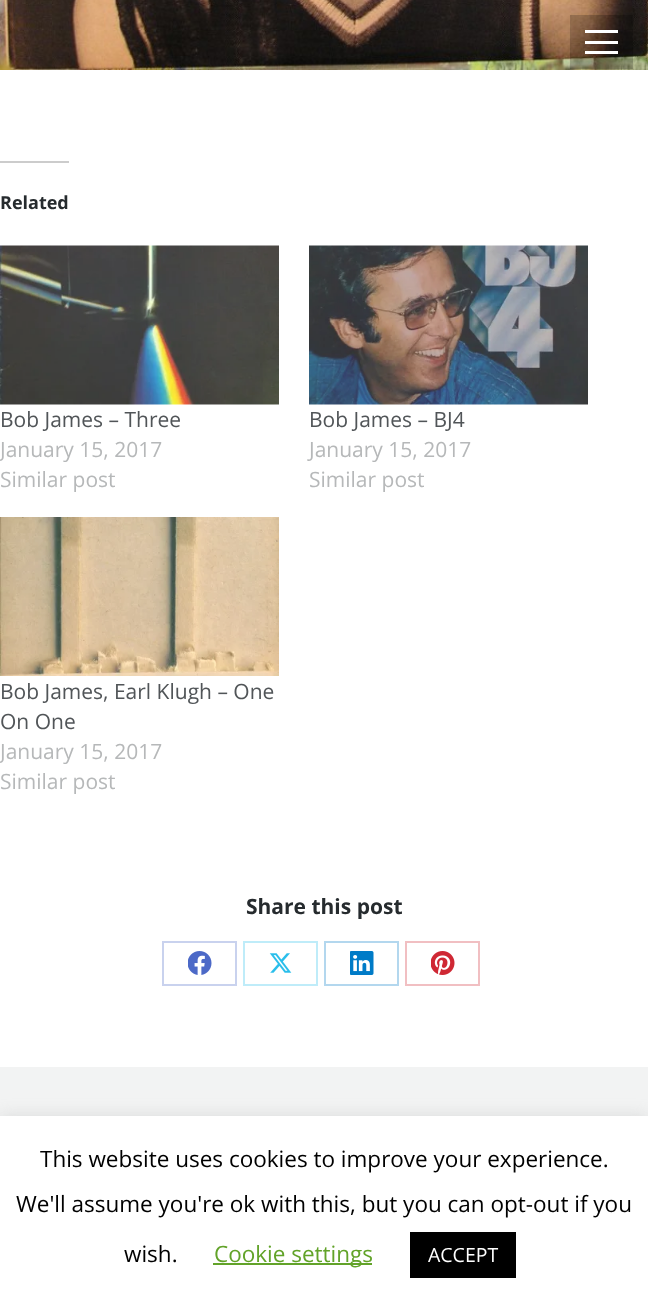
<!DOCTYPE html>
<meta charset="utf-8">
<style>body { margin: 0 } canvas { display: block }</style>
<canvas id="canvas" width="648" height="1303"></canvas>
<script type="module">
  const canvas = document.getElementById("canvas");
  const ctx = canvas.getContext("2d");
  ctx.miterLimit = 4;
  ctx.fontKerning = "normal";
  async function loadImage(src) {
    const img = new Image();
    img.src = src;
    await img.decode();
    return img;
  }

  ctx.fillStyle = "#ffffff";
  ctx.fillRect(0, 0, 648, 1303);
  ctx.drawImage(await loadImage("img1.png"), 0, 0, 648, 70);
  ctx.fillStyle = "rgba(0, 0, 0, 0.2)";
  ctx.fillRect(570, 15, 63, 54);
  ctx.fillStyle = "#ffffff";
  ctx.fillRect(585, 30, 33, 3);
  ctx.fillRect(585, 41, 33, 3);
  ctx.fillRect(585, 51, 33, 3);
  ctx.fillStyle = "#cccccc";
  ctx.fillRect(0, 161, 69, 2);
  ctx.font = "bold 18px Open Sans";
  ctx.fillStyle = "#262b2e";
  ctx.fillText("Related", 0, 209);
  ctx.drawImage(await loadImage("img2.png"), 0, 245, 279, 160);
  ctx.font = "21px Open Sans";
  ctx.fillStyle = "#515558";
  ctx.fillText("Bob James – Three", 0, 427);
  ctx.fillStyle = "#b6b8b9";
  ctx.fillText("January 15, 2017", 0, 457);
  ctx.fillText("Similar post", 0, 487);
  ctx.drawImage(await loadImage("img3.png"), 309, 245, 279, 160);
  ctx.fillStyle = "#515558";
  ctx.fillText("Bob James – BJ4", 309, 427);
  ctx.fillStyle = "#b6b8b9";
  ctx.fillText("January 15, 2017", 309, 457);
  ctx.fillText("Similar post", 309, 487);
  ctx.drawImage(await loadImage("img4.png"), 0, 517, 279, 159);
  ctx.fillStyle = "#515558";
  ctx.fillText("Bob James, Earl Klugh – One", 0, 699);
  ctx.fillText("On One", 0, 729);
  ctx.fillStyle = "#b6b8b9";
  ctx.fillText("January 15, 2017", 0, 759);
  ctx.fillText("Similar post", 0, 789);
  ctx.font = "bold 21px Open Sans";
  ctx.fillStyle = "#262b2e";
  ctx.fillText("Share this post", 246, 914);
  ctx.strokeStyle = "#c9d2ee";
  ctx.lineWidth = 2;
  ctx.strokeRect(163, 942, 73, 43);
  ctx.drawImage(await loadImage("img5.png"), 188, 951, 24, 24);
  ctx.strokeStyle = "#bfecf9";
  ctx.strokeRect(244, 942, 73, 43);
  ctx.drawImage(await loadImage("img6.png"), 269, 953, 23, 20);
  ctx.strokeStyle = "#b3d7ee";
  ctx.strokeRect(325, 942, 73, 43);
  ctx.drawImage(await loadImage("img7.png"), 350, 951, 24, 24);
  ctx.strokeStyle = "#f1bfc2";
  ctx.strokeRect(406, 942, 73, 43);
  ctx.drawImage(await loadImage("img8.png"), 431, 951, 24, 24);
  ctx.fillStyle = "#f2f3f3";
  ctx.fillRect(0, 1067, 648, 49);
  ctx.fillStyle = "rgba(172, 171, 171, 0.3)";
  ctx.filter = "blur(7.5px)";
  ctx.beginPath();
  ctx.rect(0, 1115, 648, 187);
  ctx.fill();
  ctx.filter = "none";
  ctx.fillStyle = "#ffffff";
  ctx.fillRect(0, 1116, 648, 187);
  ctx.font = "22.5px Open Sans";
  ctx.fillStyle = "#000000";
  ctx.fillText("This website uses cookies to improve your experience.", 40, 1167);
  ctx.fillText("We'll assume you're ok with this, but you can opt-out if you", 16, 1212);
  ctx.fillText("wish.", 124, 1262);
  ctx.fillStyle = "#62a329";
  ctx.fillRect(213, 1263, 159, 2);
  ctx.fillText("Cookie settings", 214, 1262);
  ctx.fillStyle = "#000000";
  ctx.fillRect(410, 1232, 106, 46);
  ctx.font = "19.5px Open Sans";
  ctx.fillStyle = "#ffffff";
  ctx.fillText("ACCEPT", 428, 1262);
</script>
